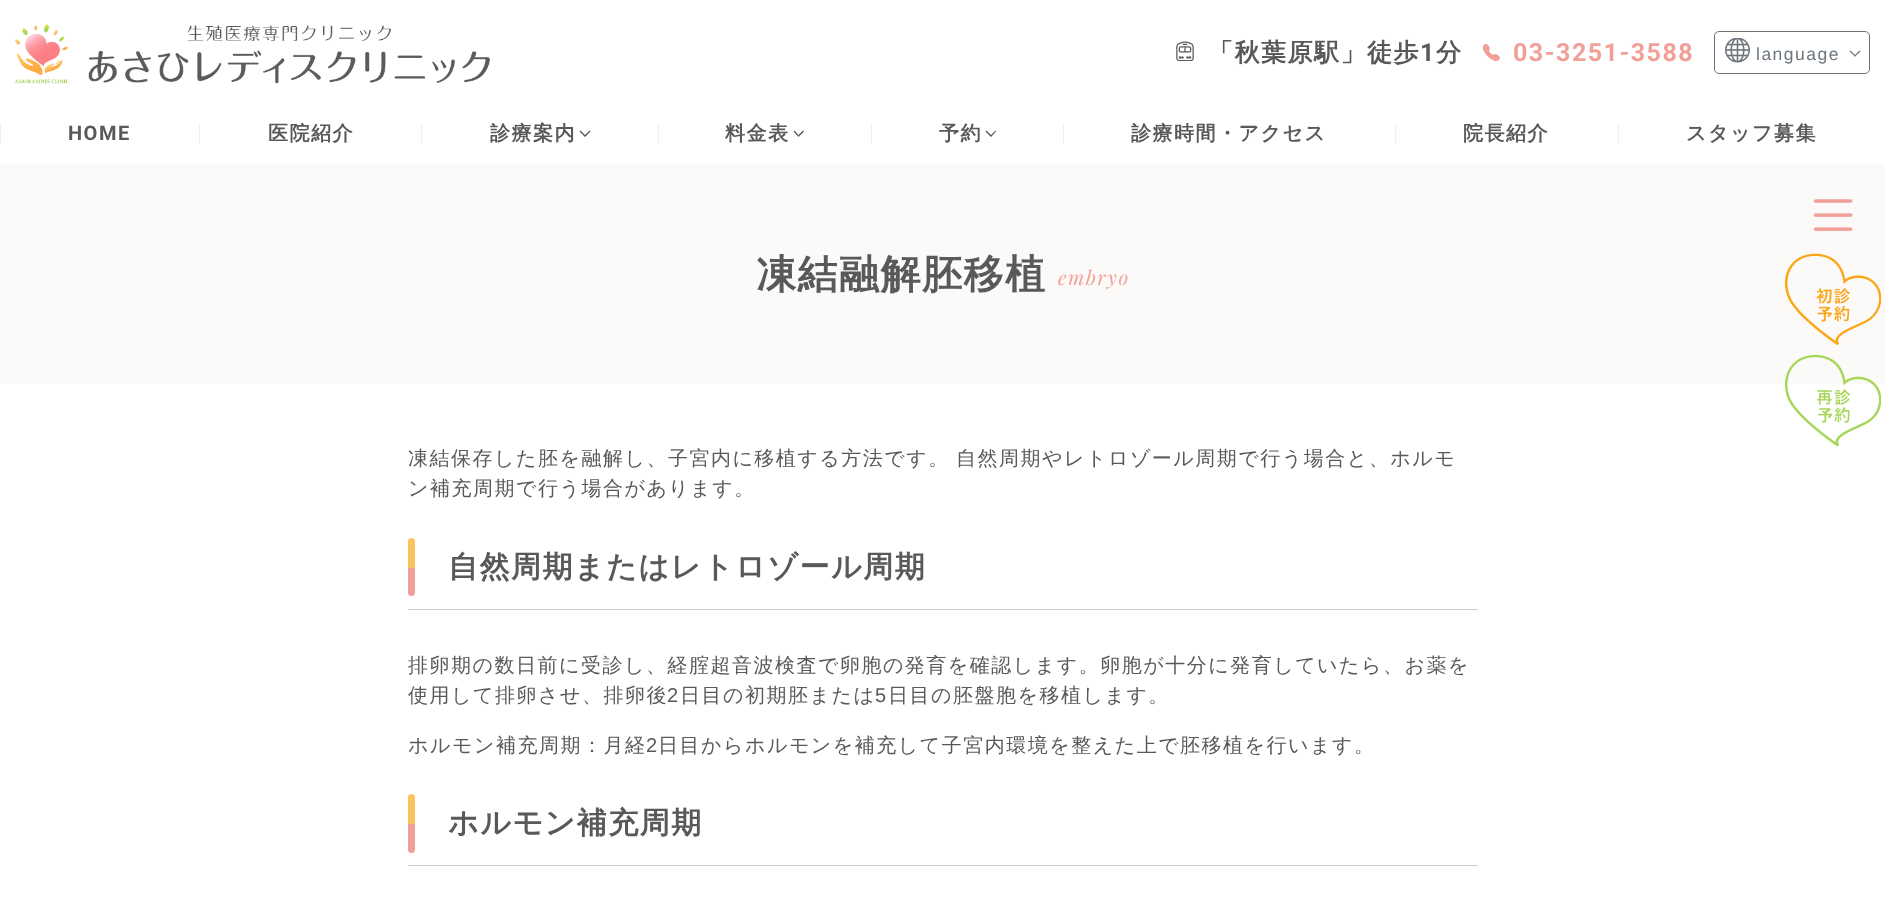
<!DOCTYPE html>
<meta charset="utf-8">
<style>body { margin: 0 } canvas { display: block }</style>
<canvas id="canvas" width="1885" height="923"></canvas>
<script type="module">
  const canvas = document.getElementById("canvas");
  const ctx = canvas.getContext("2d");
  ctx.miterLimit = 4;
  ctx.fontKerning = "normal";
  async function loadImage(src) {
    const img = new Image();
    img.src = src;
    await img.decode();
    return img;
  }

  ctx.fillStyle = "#ffffff";
  ctx.fillRect(0, 0, 1885, 923);
  ctx.drawImage(await loadImage("img1.png"), 15, 24, 475, 60);
  ctx.drawImage(await loadImage("img2.png"), 1176, 41, 18, 20);
  ctx.letterSpacing = "1.5px";
  ctx.font = "bold 25px WenQuanYi Zen Hei";
  ctx.fillStyle = "#595959";
  ctx.fillText("「秋葉原駅」徒歩", 1208, 61);
  ctx.font = "bold 25px Roboto";
  ctx.fillText("1", 1420, 61);
  ctx.font = "bold 25px WenQuanYi Zen Hei";
  ctx.fillText("分", 1436, 61);
  ctx.drawImage(await loadImage("img3.png"), 1483, 44, 17, 17);
  ctx.font = "bold 25px Roboto";
  ctx.fillStyle = "#f1a099";
  ctx.fillText("03-3251-3588", 1513, 61);
  ctx.beginPath();
  ctx.roundRect(1714.5, 31.5, 155, 42, 4.5);
  ctx.strokeStyle = "#6c757d";
  ctx.stroke();
  ctx.drawImage(await loadImage("img4.png"), 1725, 38, 25, 25);
  ctx.font = "17.5px Liberation Sans";
  ctx.fillStyle = "#6c757d";
  ctx.fillText("language", 1756, 60);
  ctx.beginPath();
  ctx.moveTo(1860.5, 51.5);
  ctx.lineTo(1855, 56.5);
  ctx.lineTo(1854, 56);
  ctx.lineTo(1859.5, 50.5);
  ctx.closePath();
  ctx.fill();
  ctx.beginPath();
  ctx.moveTo(1856, 56);
  ctx.lineTo(1855, 56.5);
  ctx.lineTo(1849.5, 51.5);
  ctx.lineTo(1850.5, 50.5);
  ctx.closePath();
  ctx.fill();
  ctx.fillStyle = "#eeeeee";
  ctx.fillRect(0, 124, 1, 20);
  ctx.font = "bold 20px Roboto";
  ctx.fillStyle = "#595959";
  ctx.fillText("HOME", 68, 140);
  ctx.fillStyle = "#eeeeee";
  ctx.fillRect(199, 124, 1, 20);
  ctx.font = "bold 20px WenQuanYi Zen Hei";
  ctx.fillStyle = "#595959";
  ctx.fillText("医院紹介", 268, 140);
  ctx.fillStyle = "#eeeeee";
  ctx.fillRect(421, 124, 1, 20);
  ctx.fillStyle = "#595959";
  ctx.fillText("診療案内", 490, 140);
  ctx.beginPath();
  ctx.moveTo(590.5, 131.5);
  ctx.lineTo(585, 137);
  ctx.lineTo(585, 135);
  ctx.lineTo(589.5, 130.5);
  ctx.closePath();
  ctx.moveTo(585, 137);
  ctx.lineTo(579.5, 131.5);
  ctx.lineTo(580.5, 130.5);
  ctx.lineTo(585, 135);
  ctx.closePath();
  ctx.fill();
  ctx.fillStyle = "#eeeeee";
  ctx.fillRect(658, 124, 1, 20);
  ctx.fillStyle = "#595959";
  ctx.fillText("料金表", 725, 140);
  ctx.beginPath();
  ctx.moveTo(804, 131.5);
  ctx.lineTo(798.5, 137);
  ctx.lineTo(798.5, 135);
  ctx.lineTo(803, 130.5);
  ctx.closePath();
  ctx.fill();
  ctx.fillStyle = "rgba(0, 0, 0, 0.65)";
  ctx.beginPath();
  ctx.moveTo(798.5, 137);
  ctx.lineTo(793.5, 131.5);
  ctx.lineTo(794.5, 130.5);
  ctx.lineTo(798.5, 135);
  ctx.closePath();
  ctx.fill();
  ctx.fillStyle = "#eeeeee";
  ctx.fillRect(871, 124, 1, 20);
  ctx.fillStyle = "#595959";
  ctx.fillText("予約", 939, 140);
  ctx.beginPath();
  ctx.moveTo(996, 131.5);
  ctx.lineTo(991, 137);
  ctx.lineTo(991, 135);
  ctx.lineTo(995.5, 130.5);
  ctx.closePath();
  ctx.moveTo(991, 137);
  ctx.lineTo(985.5, 131.5);
  ctx.lineTo(986.5, 130.5);
  ctx.lineTo(991, 135);
  ctx.closePath();
  ctx.fill();
  ctx.fillStyle = "#eeeeee";
  ctx.fillRect(1063, 124, 1, 20);
  ctx.fillStyle = "#595959";
  ctx.fillText("診療時間・アクセス", 1131, 140);
  ctx.fillStyle = "#eeeeee";
  ctx.fillRect(1395, 124, 1, 20);
  ctx.fillStyle = "#595959";
  ctx.fillText("院長紹介", 1463, 140);
  ctx.fillStyle = "#eeeeee";
  ctx.fillRect(1618, 124, 1, 20);
  ctx.fillStyle = "#595959";
  ctx.fillText("スタッフ募集", 1686, 140);
  ctx.fillStyle = "#fbfaf8";
  ctx.fillRect(0, 164, 1885, 220);
  ctx.font = "bold 40px WenQuanYi Zen Hei";
  ctx.fillStyle = "#595959";
  ctx.fillText("凍結融解胚移植", 756, 288);
  ctx.font = "italic 20px Playfair Display";
  ctx.fillStyle = "#f1a099";
  ctx.fillText("embryo", 1058, 285);
  ctx.drawImage(await loadImage("img5.png"), 1813, 199, 40, 32);
  ctx.drawImage(await loadImage("img6.png"), 1785, 253, 96, 93);
  ctx.drawImage(await loadImage("img7.png"), 1785, 354, 96, 93);
  ctx.font = "500 20px WenQuanYi Zen Hei";
  ctx.fillStyle = "#595959";
  ctx.fillText("凍結保存した胚を融解し、子宮内に移植する方法です。", 408, 465);
  ctx.fillText("自然周期やレトロゾール周期で行う場合と、ホルモ", 956, 465);
  ctx.fillText("ン補充周期で行う場合があります。", 408, 495);
  ctx.fillStyle = "#cccccc";
  ctx.fillRect(408, 609, 1070, 1);
  ctx.fillStyle = "#f9c45d";
  ctx.beginPath();
  ctx.roundRect(408, 538, 7, 30, [3.5, 3.5, 0, 0]);
  ctx.fill();
  ctx.fillStyle = "#f1a099";
  ctx.beginPath();
  ctx.roundRect(408, 568, 7, 28, [0, 0, 3.5, 3.5]);
  ctx.fill();
  ctx.font = "bold 30px WenQuanYi Zen Hei";
  ctx.fillStyle = "#595959";
  ctx.fillText("自然周期またはレトロゾール周期", 448, 577);
  ctx.font = "500 20px WenQuanYi Zen Hei";
  ctx.fillText("排卵期の数日前に受診し、経腟超音波検査で卵胞の発育を確認します。卵胞が十分に発育していたら、お薬を", 408, 672);
  ctx.fillText("使用して排卵させ、排卵後", 408, 702);
  ctx.font = "20px Liberation Sans";
  ctx.fillText("2", 667, 702);
  ctx.font = "500 20px WenQuanYi Zen Hei";
  ctx.fillText("日目の初期胚または", 680, 702);
  ctx.font = "20px Liberation Sans";
  ctx.fillText("5", 875, 702);
  ctx.font = "500 20px WenQuanYi Zen Hei";
  ctx.fillText("日目の胚盤胞を移植します。", 888, 702);
  ctx.fillText("ホルモン補充周期：月経", 408, 752);
  ctx.font = "20px Liberation Sans";
  ctx.fillText("2", 646, 752);
  ctx.font = "500 20px WenQuanYi Zen Hei";
  ctx.fillText("日目からホルモンを補充して子宮内環境を整えた上で胚移植を行います。", 658, 752);
  ctx.fillStyle = "#cccccc";
  ctx.fillRect(408, 865, 1070, 1);
  ctx.fillStyle = "#f9c45d";
  ctx.beginPath();
  ctx.roundRect(408, 794, 7, 30, [3.5, 3.5, 0, 0]);
  ctx.fill();
  ctx.fillStyle = "#f1a099";
  ctx.beginPath();
  ctx.roundRect(408, 824, 7, 29, [0, 0, 3.5, 3.5]);
  ctx.fill();
  ctx.font = "bold 30px WenQuanYi Zen Hei";
  ctx.fillStyle = "#595959";
  ctx.fillText("ホルモン補充周期", 448, 833);
</script>
